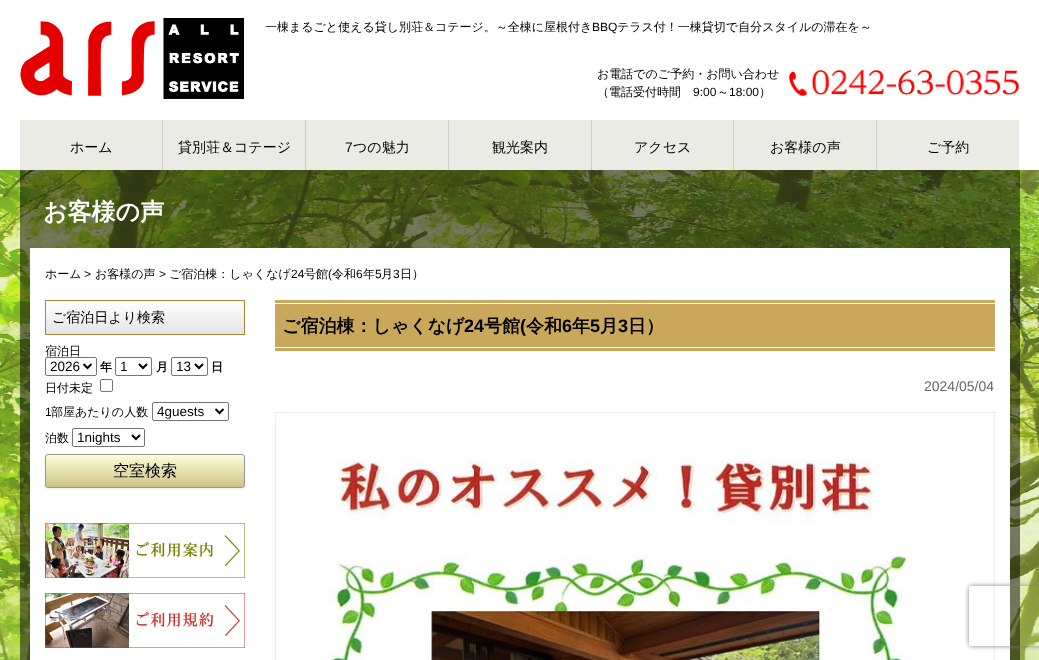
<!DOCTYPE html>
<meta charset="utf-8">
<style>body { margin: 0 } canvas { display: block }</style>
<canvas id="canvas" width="1039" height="660"></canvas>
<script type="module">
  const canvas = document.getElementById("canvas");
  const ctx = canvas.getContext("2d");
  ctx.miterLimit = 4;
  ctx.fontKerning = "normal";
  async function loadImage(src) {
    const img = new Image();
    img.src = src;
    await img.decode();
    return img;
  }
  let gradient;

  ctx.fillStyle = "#ffffff";
  ctx.fillRect(0, 0, 1039, 660);
  ctx.drawImage(await loadImage("img1.png"), 0, 170, 1039, 490);
  ctx.drawImage(await loadImage("img2.png"), 20, 18, 224, 81);
  ctx.font = "500 12px WenQuanYi Zen Hei";
  ctx.fillStyle = "#000000";
  ctx.fillText("一棟まるごと使える貸し別荘＆コテージ。～全棟に屋根付き", 265, 31);
  ctx.font = "12px Liberation Sans";
  ctx.fillText("BBQ", 592, 31);
  ctx.font = "500 12px WenQuanYi Zen Hei";
  ctx.fillText("テラス付！一棟貸切で自分スタイルの滞在を～", 617, 31);
  ctx.fillText("お電話でのご予約・お問い合わせ", 597, 78);
  ctx.fillText("（電話受付時間", 597, 96);
  ctx.font = "12px Liberation Sans";
  ctx.fillText("9:00", 693, 96);
  ctx.font = "500 12px WenQuanYi Zen Hei";
  ctx.fillText("～", 717, 96);
  ctx.font = "12px Liberation Sans";
  ctx.fillText("18:00", 729, 96);
  ctx.font = "500 12px WenQuanYi Zen Hei";
  ctx.fillText("）", 759, 96);
  ctx.drawImage(await loadImage("img3.png"), 789, 70, 230, 26);
  ctx.fillStyle = "#ebebe6";
  ctx.fillRect(20, 120, 142, 50);
  ctx.font = "500 14px WenQuanYi Zen Hei";
  ctx.fillStyle = "#000000";
  ctx.fillText("ホーム", 70, 152);
  ctx.fillStyle = "#ebebe6";
  ctx.fillRect(163, 120, 142, 50);
  ctx.fillStyle = "#cccccc";
  ctx.fillRect(162, 120, 1, 50);
  ctx.fillStyle = "#000000";
  ctx.fillText("貸別荘＆コテージ", 178, 152);
  ctx.fillStyle = "#ebebe6";
  ctx.fillRect(306, 120, 142, 50);
  ctx.fillStyle = "#cccccc";
  ctx.fillRect(305, 120, 1, 50);
  ctx.font = "14px Liberation Sans";
  ctx.fillStyle = "#000000";
  ctx.fillText("7", 345, 152);
  ctx.font = "500 14px WenQuanYi Zen Hei";
  ctx.fillText("つの魅力", 353, 152);
  ctx.fillStyle = "#ebebe6";
  ctx.fillRect(449, 120, 142, 50);
  ctx.fillStyle = "#cccccc";
  ctx.fillRect(448, 120, 1, 50);
  ctx.fillStyle = "#000000";
  ctx.fillText("観光案内", 492, 152);
  ctx.fillStyle = "#ebebe6";
  ctx.fillRect(592, 120, 141, 50);
  ctx.fillStyle = "#cccccc";
  ctx.fillRect(591, 120, 1, 50);
  ctx.fillStyle = "#000000";
  ctx.fillText("アクセス", 634, 152);
  ctx.fillStyle = "#ebebe6";
  ctx.fillRect(734, 120, 142, 50);
  ctx.fillStyle = "#cccccc";
  ctx.fillRect(733, 120, 1, 50);
  ctx.fillStyle = "#000000";
  ctx.fillText("お客様の声", 770, 152);
  ctx.fillStyle = "#ebebe6";
  ctx.fillRect(877, 120, 142, 50);
  ctx.fillStyle = "#cccccc";
  ctx.fillRect(876, 120, 1, 50);
  ctx.fillStyle = "#000000";
  ctx.fillText("ご予約", 927, 152);
  ctx.font = "bold 24px WenQuanYi Zen Hei";
  ctx.fillStyle = "#ffffff";
  ctx.fillText("お客様の声", 43, 220);
  ctx.fillRect(30, 248, 980, 412);
  ctx.font = "500 12px WenQuanYi Zen Hei";
  ctx.fillStyle = "#000000";
  ctx.fillText("ホーム", 45, 278);
  ctx.font = "12px Liberation Sans";
  ctx.fillText(">", 84, 278);
  ctx.font = "500 12px WenQuanYi Zen Hei";
  ctx.fillText("お客様の声", 95, 278);
  ctx.font = "12px Liberation Sans";
  ctx.fillText(">", 159, 278);
  ctx.font = "500 12px WenQuanYi Zen Hei";
  ctx.fillText("ご宿泊棟：しゃくなげ", 169, 278);
  ctx.font = "12px Liberation Sans";
  ctx.fillText("24", 291, 278);
  ctx.font = "500 12px WenQuanYi Zen Hei";
  ctx.fillText("号館", 304, 278);
  ctx.font = "12px Liberation Sans";
  ctx.fillText("(", 328, 278);
  ctx.font = "500 12px WenQuanYi Zen Hei";
  ctx.fillText("令和", 332, 278);
  ctx.font = "12px Liberation Sans";
  ctx.fillText("6", 356, 278);
  ctx.font = "500 12px WenQuanYi Zen Hei";
  ctx.fillText("年", 363, 278);
  ctx.font = "12px Liberation Sans";
  ctx.fillText("5", 375, 278);
  ctx.font = "500 12px WenQuanYi Zen Hei";
  ctx.fillText("月", 381, 278);
  ctx.font = "12px Liberation Sans";
  ctx.fillText("3", 393, 278);
  ctx.font = "500 12px WenQuanYi Zen Hei";
  ctx.fillText("日）", 400, 278);
  gradient = ctx.createLinearGradient(145, 301, 145, 334);
  gradient.addColorStop(0, "#ffffff");
  gradient.addColorStop(1, "#e4e4e4");
  ctx.fillStyle = gradient;
  ctx.fillRect(46, 304, 198, 30);
  ctx.strokeStyle = "#ad8233";
  ctx.strokeRect(45.5, 300.5, 199, 34);
  ctx.font = "500 14px WenQuanYi Zen Hei";
  ctx.fillStyle = "#000000";
  ctx.fillText("ご宿泊日より検索", 52, 322);
  ctx.font = "500 12px WenQuanYi Zen Hei";
  ctx.fillText("宿泊日", 45, 355);
  ctx.beginPath();
  ctx.roundRect(45.5, 357.5, 51, 18, 1.5);
  ctx.strokeStyle = "#767676";
  ctx.stroke();
  ctx.beginPath();
  ctx.moveTo(83.5, 364);
  ctx.lineTo(87.5, 368);
  ctx.lineTo(91.5, 364);
  ctx.strokeStyle = "#000000";
  ctx.lineWidth = 2;
  ctx.stroke();
  ctx.font = "13.5px Liberation Sans";
  ctx.fillText("2026", 50, 371);
  ctx.font = "bold 12px WenQuanYi Zen Hei";
  ctx.fillText("年", 100, 371);
  ctx.beginPath();
  ctx.roundRect(115.5, 357.5, 36, 18, 1.5);
  ctx.strokeStyle = "#767676";
  ctx.lineWidth = 1;
  ctx.stroke();
  ctx.beginPath();
  ctx.moveTo(139, 364);
  ctx.lineTo(143, 368);
  ctx.lineTo(147, 364);
  ctx.strokeStyle = "#000000";
  ctx.lineWidth = 2;
  ctx.stroke();
  ctx.font = "13.5px Liberation Sans";
  ctx.fillText("1", 120, 371);
  ctx.font = "bold 12px WenQuanYi Zen Hei";
  ctx.fillText("月", 156, 371);
  ctx.beginPath();
  ctx.roundRect(171.5, 357.5, 36, 18, 1.5);
  ctx.strokeStyle = "#767676";
  ctx.lineWidth = 1;
  ctx.stroke();
  ctx.beginPath();
  ctx.moveTo(195, 364);
  ctx.lineTo(199, 368);
  ctx.lineTo(203, 364);
  ctx.strokeStyle = "#000000";
  ctx.lineWidth = 2;
  ctx.stroke();
  ctx.font = "13.5px Liberation Sans";
  ctx.fillText("13", 176, 371);
  ctx.font = "bold 12px WenQuanYi Zen Hei";
  ctx.fillText("日", 211, 371);
  ctx.font = "500 12px WenQuanYi Zen Hei";
  ctx.fillText("日付未定", 45, 392);
  ctx.beginPath();
  ctx.roundRect(100.5, 379.5, 12, 12, 1.5);
  ctx.strokeStyle = "#767676";
  ctx.lineWidth = 1;
  ctx.stroke();
  ctx.font = "12px Liberation Sans";
  ctx.fillText("1", 45, 416);
  ctx.font = "500 12px WenQuanYi Zen Hei";
  ctx.fillText("部屋あたりの人数", 51, 416);
  ctx.beginPath();
  ctx.roundRect(152.5, 402.5, 76, 18, 1.5);
  ctx.stroke();
  ctx.beginPath();
  ctx.moveTo(215.5, 409);
  ctx.lineTo(219.5, 413);
  ctx.lineTo(223.5, 409);
  ctx.strokeStyle = "#000000";
  ctx.lineWidth = 2;
  ctx.stroke();
  ctx.font = "13.5px Liberation Sans";
  ctx.fillText("4guests", 157, 416);
  ctx.font = "500 12px WenQuanYi Zen Hei";
  ctx.fillText("泊数", 45, 442);
  ctx.beginPath();
  ctx.roundRect(72.5, 428.5, 72, 18, 1.5);
  ctx.strokeStyle = "#767676";
  ctx.lineWidth = 1;
  ctx.stroke();
  ctx.beginPath();
  ctx.moveTo(132, 435);
  ctx.lineTo(136, 439);
  ctx.lineTo(140, 435);
  ctx.strokeStyle = "#000000";
  ctx.lineWidth = 2;
  ctx.stroke();
  ctx.font = "13.5px Liberation Sans";
  ctx.fillText("1nights", 77, 442);
  ctx.fillStyle = "rgba(64, 64, 64, 0.1)";
  ctx.filter = "blur(1px)";
  ctx.beginPath();
  ctx.roundRect(45, 455, 200, 34, 3);
  ctx.fill();
  ctx.filter = "none";
  ctx.save();
  ctx.beginPath();
  ctx.roundRect(45, 454, 200, 34, 3);
  ctx.clip();
  gradient = ctx.createLinearGradient(145, 455, 145, 487);
  gradient.addColorStop(0, "#fdfdd8");
  gradient.addColorStop(1, "#cec488");
  ctx.fillStyle = gradient;
  ctx.fillRect(45, 455, 200, 32);
  ctx.restore();
  ctx.beginPath();
  ctx.roundRect(45.5, 454.5, 199, 33, 2.5);
  ctx.strokeStyle = "#999999";
  ctx.lineWidth = 1;
  ctx.stroke();
  ctx.font = "500 16px WenQuanYi Zen Hei";
  ctx.fillStyle = "#000000";
  ctx.fillText("空室検索", 113, 476);
  ctx.drawImage(await loadImage("img4.png"), 45, 523, 200, 55);
  ctx.drawImage(await loadImage("img5.png"), 45, 593, 200, 55);
  ctx.fillStyle = "#c9a85c";
  ctx.fillRect(275, 300, 720, 51);
  ctx.fillStyle = "#ffffff";
  ctx.fillRect(275, 303, 720, 1);
  ctx.fillRect(275, 347, 720, 1);
  ctx.font = "bold 18px WenQuanYi Zen Hei";
  ctx.fillStyle = "#000000";
  ctx.fillText("ご宿泊棟：しゃくなげ", 282, 332);
  ctx.font = "bold 18px Liberation Sans";
  ctx.fillText("24", 464, 332);
  ctx.font = "bold 18px WenQuanYi Zen Hei";
  ctx.fillText("号館", 484, 332);
  ctx.font = "bold 18px Liberation Sans";
  ctx.fillText("(", 520, 332);
  ctx.font = "bold 18px WenQuanYi Zen Hei";
  ctx.fillText("令和", 526, 332);
  ctx.font = "bold 18px Liberation Sans";
  ctx.fillText("6", 562, 332);
  ctx.font = "bold 18px WenQuanYi Zen Hei";
  ctx.fillText("年", 572, 332);
  ctx.font = "bold 18px Liberation Sans";
  ctx.fillText("5", 590, 332);
  ctx.font = "bold 18px WenQuanYi Zen Hei";
  ctx.fillText("月", 600, 332);
  ctx.font = "bold 18px Liberation Sans";
  ctx.fillText("3", 618, 332);
  ctx.font = "bold 18px WenQuanYi Zen Hei";
  ctx.fillText("日）", 628, 332);
  ctx.font = "14px Liberation Sans";
  ctx.fillStyle = "#666666";
  ctx.fillText("2024/05/04", 924, 391);
  ctx.drawImage(await loadImage("img6.png"), 275, 412, 720, 248);
  ctx.save();
  ctx.beginPath();
  ctx.moveTo(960, 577);
  ctx.lineTo(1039, 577);
  ctx.lineTo(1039, 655);
  ctx.lineTo(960, 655);
  ctx.closePath();
  ctx.moveTo(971, 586);
  ctx.lineTo(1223, 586);
  ctx.bezierCurveTo(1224, 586, 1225, 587, 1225, 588);
  ctx.lineTo(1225, 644);
  ctx.bezierCurveTo(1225, 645, 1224, 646, 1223, 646);
  ctx.lineTo(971, 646);
  ctx.bezierCurveTo(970, 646, 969, 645, 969, 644);
  ctx.lineTo(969, 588);
  ctx.bezierCurveTo(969, 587, 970, 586, 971, 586);
  ctx.closePath();
  ctx.clip("evenodd");
  ctx.fillStyle = "#808080";
  ctx.filter = "blur(2.5px)";
  ctx.beginPath();
  ctx.roundRect(969, 586, 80, 60, 2);
  ctx.fill();
  ctx.filter = "none";
  ctx.restore();
</script>
